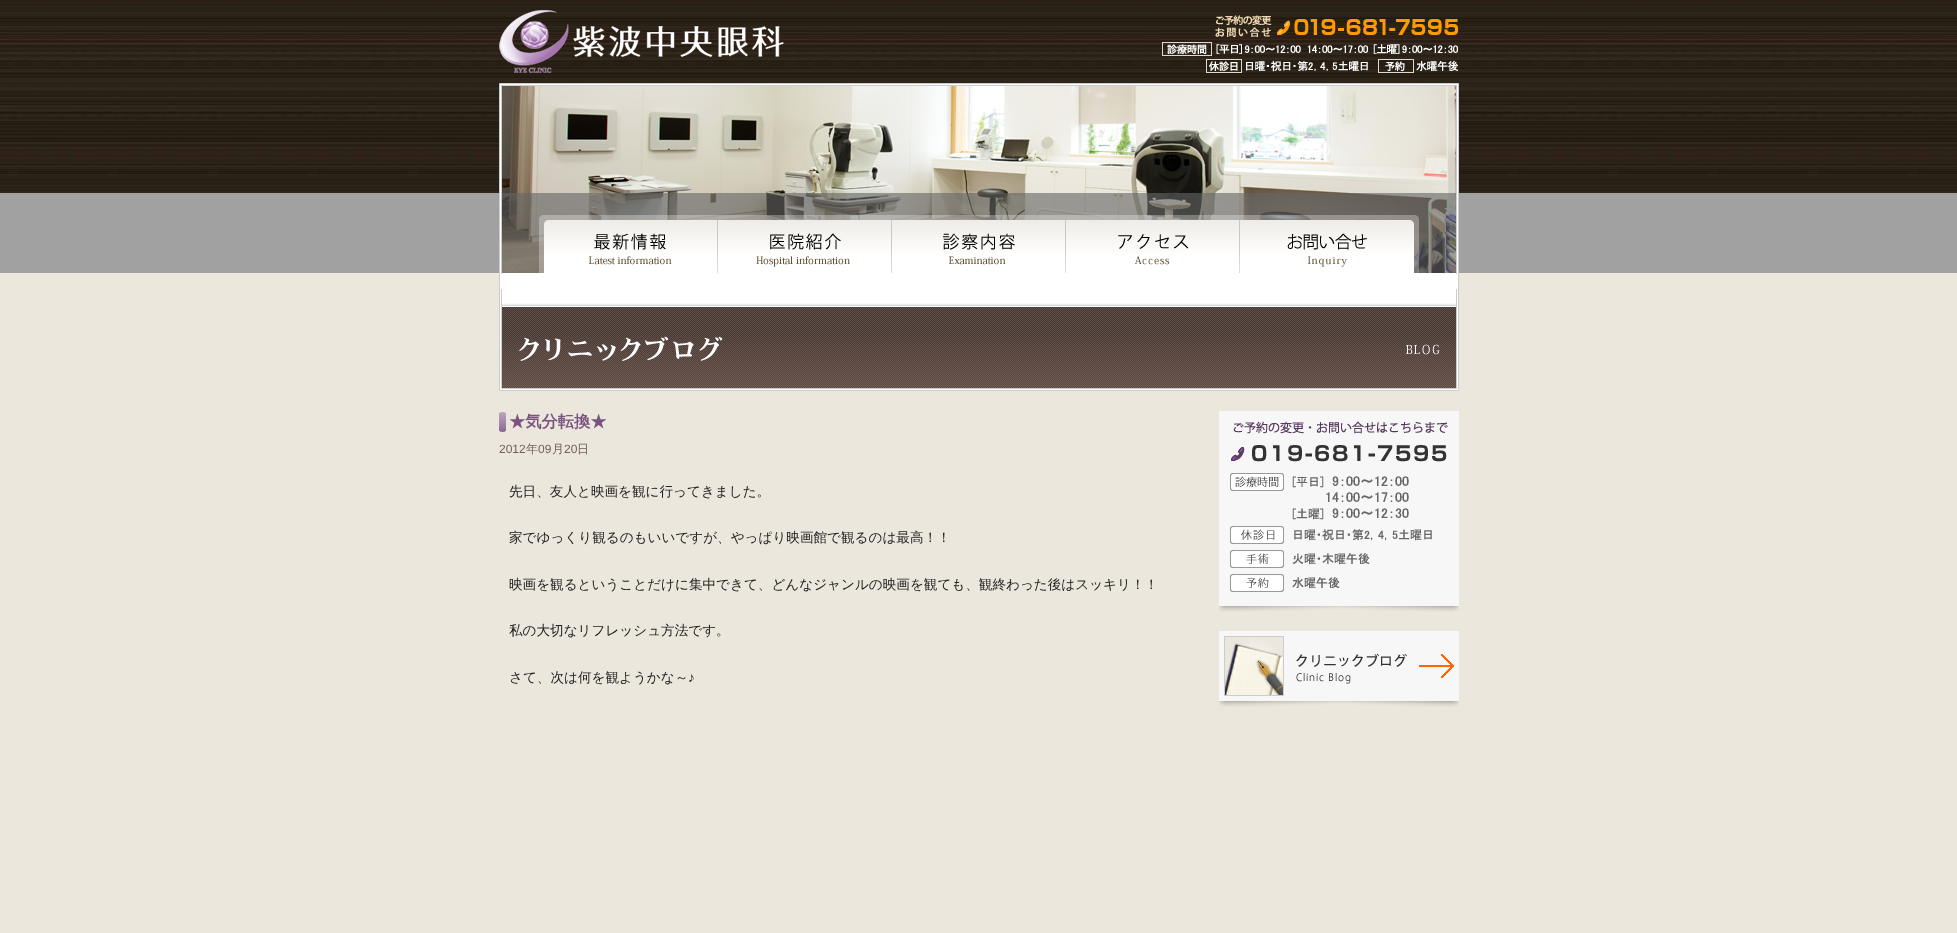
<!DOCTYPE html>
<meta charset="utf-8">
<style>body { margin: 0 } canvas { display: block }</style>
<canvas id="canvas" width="1957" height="933"></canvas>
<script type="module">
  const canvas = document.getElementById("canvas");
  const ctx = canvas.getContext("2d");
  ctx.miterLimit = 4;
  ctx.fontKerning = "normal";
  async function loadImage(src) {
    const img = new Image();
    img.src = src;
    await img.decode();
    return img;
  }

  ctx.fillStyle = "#ece7dd";
  ctx.fillRect(0, 0, 1957, 933);
  ctx.drawImage(await loadImage("img1.png"), 0, 0, 1957, 273);
  ctx.drawImage(await loadImage("img2.png"), 499, 10, 285, 63);
  ctx.drawImage(await loadImage("img3.png"), 1162, 15, 297, 58);
  ctx.fillStyle = "#ffffff";
  ctx.beginPath();
  ctx.rect(499.5, 83.5, 959, 307);
  ctx.fill();
  ctx.strokeStyle = "#cccccc";
  ctx.stroke();
  ctx.drawImage(await loadImage("img4.png"), 502, 86, 954, 187);
  ctx.fillStyle = "#cccccc";
  ctx.fillRect(501, 85, 956, 1);
  ctx.fillRect(1456, 85, 1, 189);
  ctx.fillRect(501, 85, 1, 189);
  ctx.drawImage(await loadImage("img5.png"), 502, 193, 954, 80);
  ctx.drawImage(await loadImage("img6.png"), 544, 220, 174, 53);
  ctx.drawImage(await loadImage("img7.png"), 718, 220, 174, 53);
  ctx.drawImage(await loadImage("img8.png"), 892, 220, 174, 53);
  ctx.drawImage(await loadImage("img9.png"), 1066, 220, 174, 53);
  ctx.drawImage(await loadImage("img10.png"), 1240, 220, 174, 53);
  ctx.drawImage(await loadImage("img11.png"), 501, 289, 956, 100);
  ctx.drawImage(await loadImage("img12.png"), 499, 412, 7, 20);
  ctx.font = "bold 16.25px WenQuanYi Zen Hei";
  ctx.fillStyle = "#79547f";
  ctx.fillText("★気分転換★", 509, 427);
  ctx.font = "12px Liberation Sans";
  ctx.fillStyle = "#715e57";
  ctx.fillText("2012", 499, 453);
  ctx.font = "500 12px WenQuanYi Zen Hei";
  ctx.fillText("年", 526, 453);
  ctx.font = "12px Liberation Sans";
  ctx.fillText("09", 538, 453);
  ctx.font = "500 12px WenQuanYi Zen Hei";
  ctx.fillText("月", 552, 453);
  ctx.font = "12px Liberation Sans";
  ctx.fillText("20", 564, 453);
  ctx.font = "500 12px WenQuanYi Zen Hei";
  ctx.fillText("日", 577, 453);
  ctx.font = "500 13.6px WenQuanYi Zen Hei";
  ctx.fillStyle = "#222222";
  ctx.fillText("先日、友人と映画を観に行ってきました。", 509, 496);
  ctx.fillText("家でゆっくり観るのもいいですが、やっぱり映画館で観るのは最高！！", 509, 542);
  ctx.fillText("映画を観るということだけに集中できて、どんなジャンルの映画を観ても、観終わった後はスッキリ！！", 509, 589);
  ctx.fillText("私の大切なリフレッシュ方法です。", 509, 635);
  ctx.fillText("さて、次は何を観ようかな～", 509, 682);
  ctx.font = "13.6px Liberation Sans";
  ctx.fillText("♪", 688, 682);
  ctx.drawImage(await loadImage("img13.png"), 1219, 606, 240, 6);
  ctx.drawImage(await loadImage("img14.png"), 1219, 411, 240, 195);
  ctx.drawImage(await loadImage("img13.png"), 1219, 701, 240, 6);
  ctx.drawImage(await loadImage("img15.png"), 1219, 631, 240, 70);
</script>
